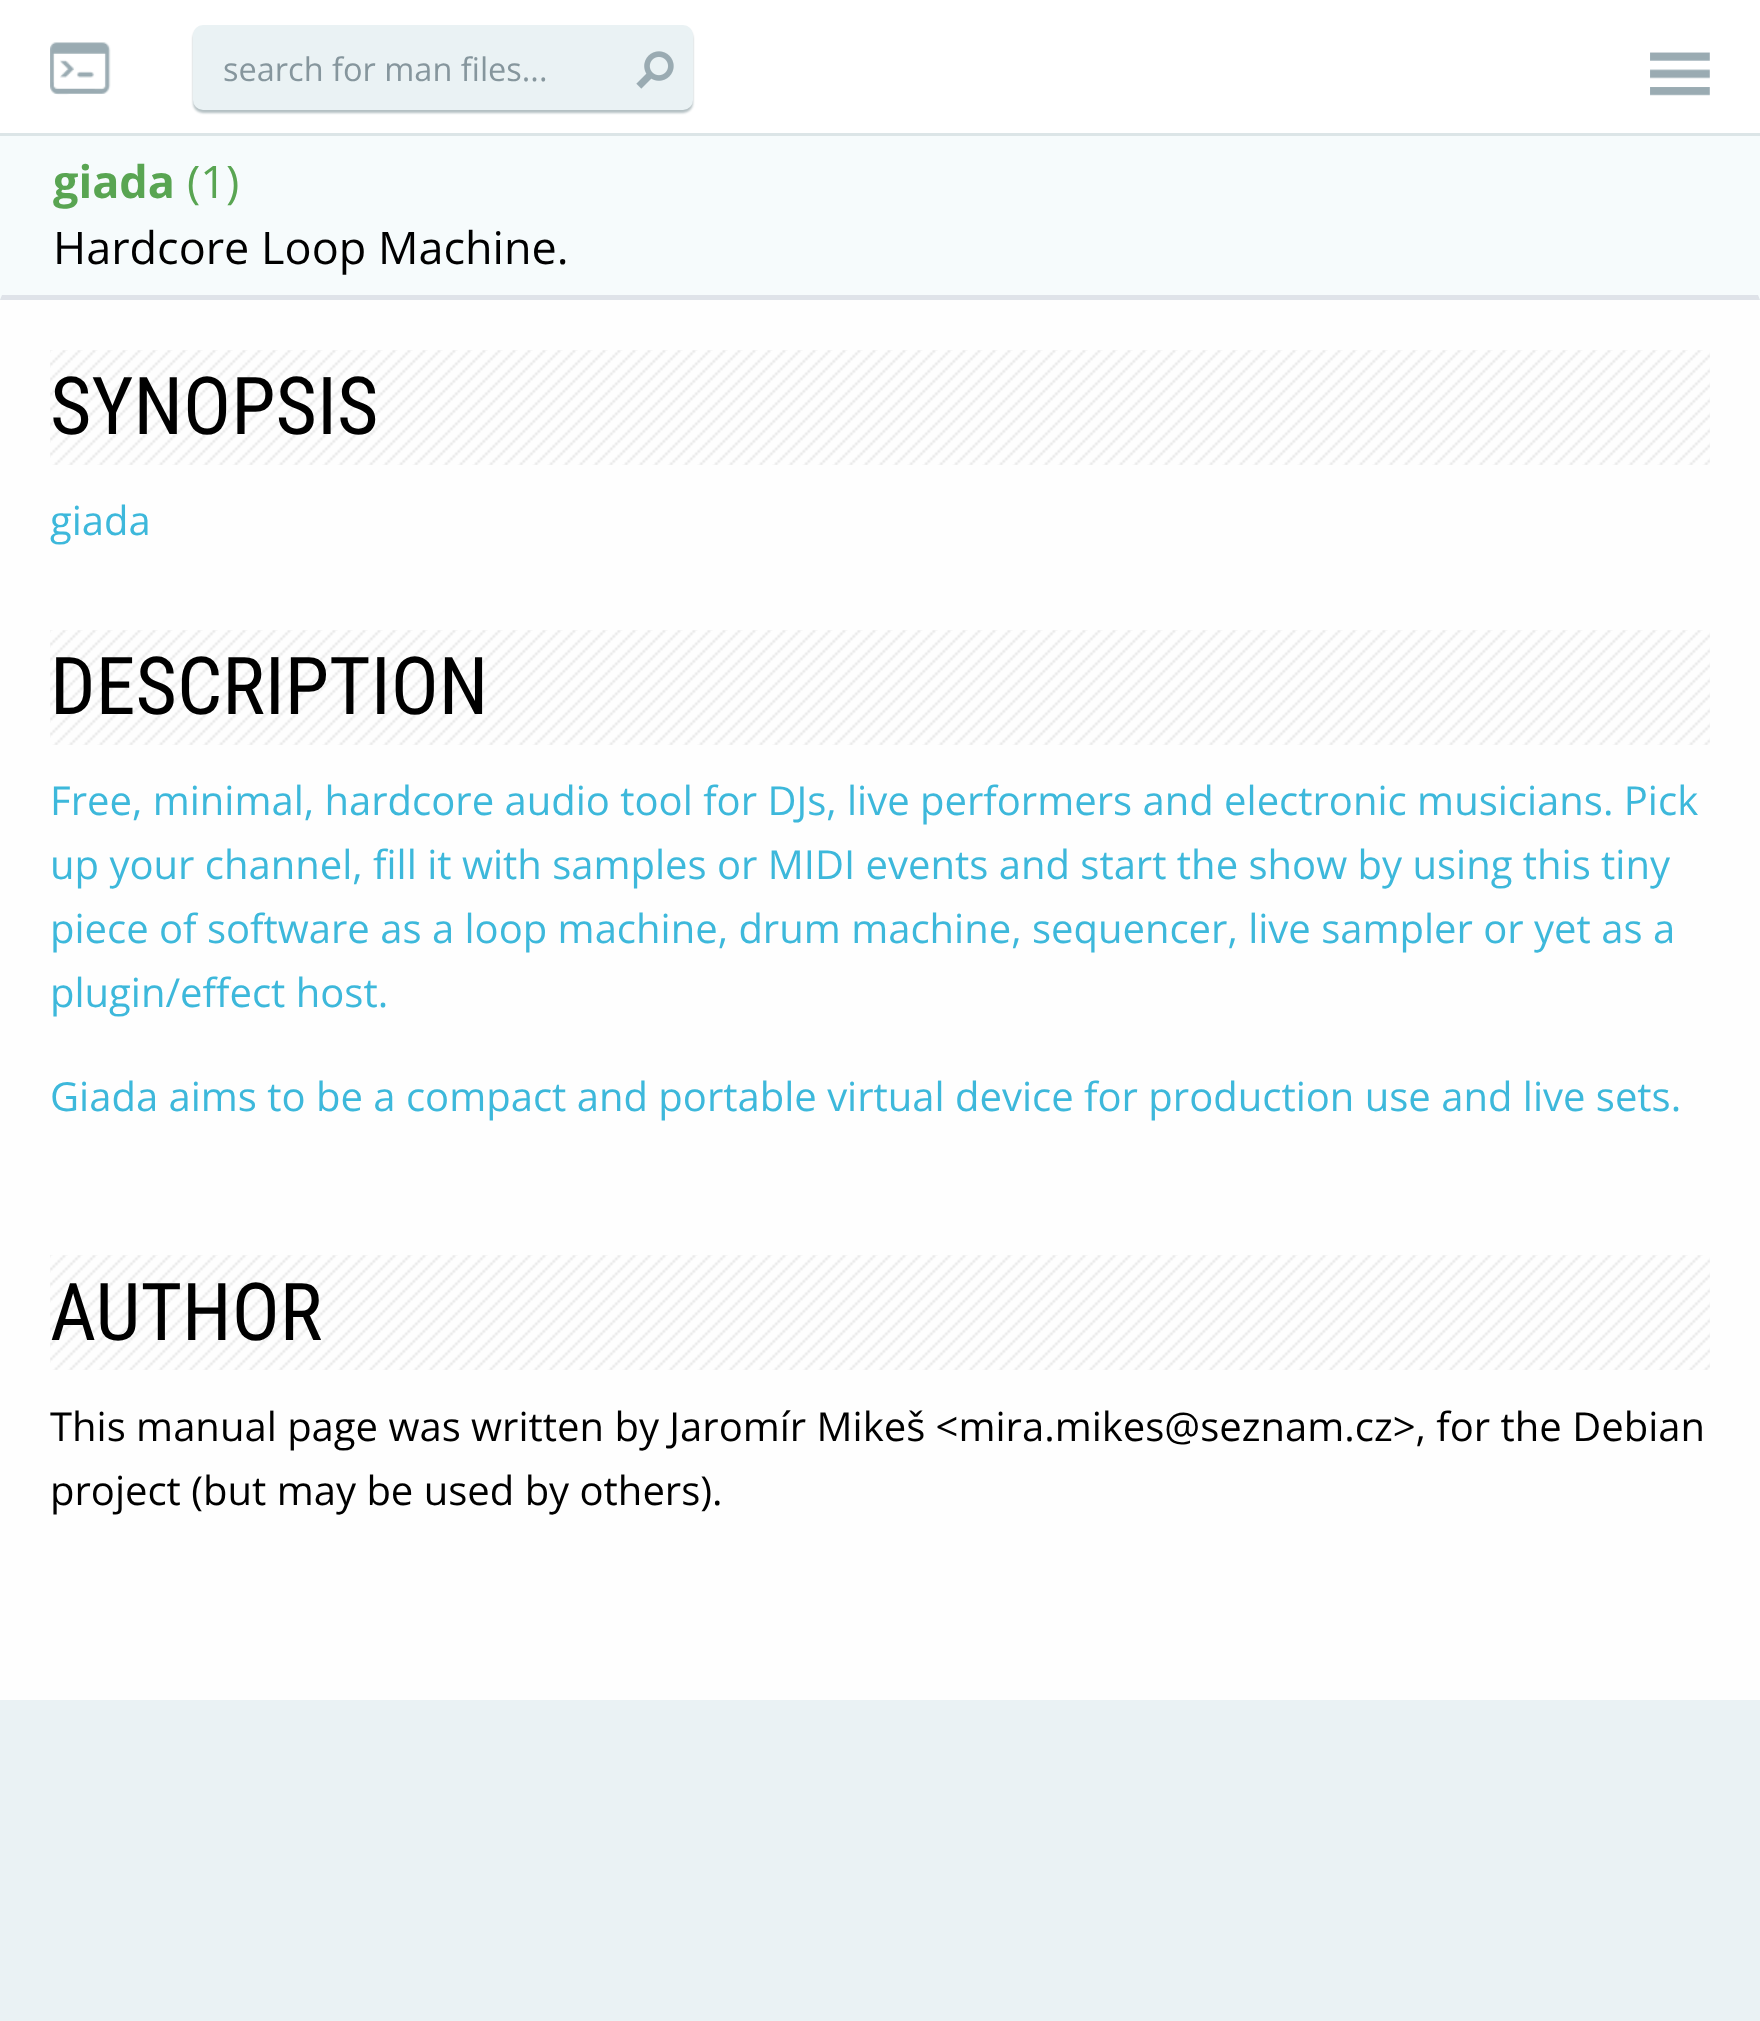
<!DOCTYPE html>
<meta charset="utf-8">
<style>body { margin: 0 } canvas { display: block }</style>
<canvas id="canvas" width="1760" height="2021"></canvas>
<script type="module">
  const canvas = document.getElementById("canvas");
  const ctx = canvas.getContext("2d");
  ctx.miterLimit = 4;
  ctx.fontKerning = "normal";
  async function loadImage(src) {
    const img = new Image();
    img.src = src;
    await img.decode();
    return img;
  }

  ctx.fillStyle = "#eaf2f4";
  ctx.fillRect(0, 0, 1760, 2021);
  ctx.fillStyle = "#ffffff";
  ctx.fillRect(0, 0, 1760, 133);
  ctx.fillStyle = "#dce5e7";
  ctx.fillRect(0, 133, 1760, 3);
  ctx.drawImage(await loadImage("img1.png"), 50, 42, 61, 53);
  ctx.fillStyle = "rgba(6, 47, 55, 0.3)";
  ctx.filter = "blur(1px)";
  ctx.beginPath();
  ctx.roundRect(193, 28, 500, 85, 10);
  ctx.fill();
  ctx.filter = "none";
  ctx.fillStyle = "#eaf2f4";
  ctx.beginPath();
  ctx.roundRect(193, 25, 500, 85, 10);
  ctx.fill();
  ctx.font = "32.5px Open Sans";
  ctx.fillStyle = "#86969d";
  ctx.fillText("search for man files...", 223, 81);
  ctx.drawImage(await loadImage("img2.png"), 636, 51, 38, 38);
  ctx.drawImage(await loadImage("img3.png"), 1650, 52, 60, 44);
  ctx.fillStyle = "#fefefe";
  ctx.fillRect(0, 300, 1760, 1400);
  ctx.fillStyle = "#f6fbfc";
  ctx.fillRect(0, 136, 1760, 164);
  ctx.fillStyle = "#dfe3e9";
  ctx.beginPath();
  ctx.moveTo(1760, 300);
  ctx.lineTo(0, 300);
  ctx.lineTo(2, 295);
  ctx.lineTo(1758, 295);
  ctx.closePath();
  ctx.fill();
  ctx.font = "bold 45px Open Sans";
  ctx.fillStyle = "#59a552";
  ctx.fillText("giada", 53, 198);
  ctx.font = "45px Open Sans";
  ctx.fillText("(1)", 187, 198);
  ctx.fillStyle = "#000000";
  ctx.fillText("Hardcore Loop Machine.", 53, 264);
  ctx.drawImage(await loadImage("img4.png"), 50, 350, 1660, 115);
  ctx.font = "80px Roboto Condensed";
  ctx.fillText("SYNOPSIS", 50, 434);
  ctx.font = "40px Open Sans";
  ctx.fillStyle = "#3db8db";
  ctx.fillText("giada", 50, 535);
  ctx.drawImage(await loadImage("img4.png"), 50, 630, 1660, 115);
  ctx.font = "80px Roboto Condensed";
  ctx.fillStyle = "#000000";
  ctx.fillText("DESCRIPTION", 50, 714);
  ctx.font = "40px Open Sans";
  ctx.fillStyle = "#3db8db";
  ctx.fillText("Free, minimal, hardcore audio tool for DJs, live performers and electronic musicians. Pick", 50, 815);
  ctx.fillText("up your channel, fill it with samples or MIDI events and start the show by using this tiny", 50, 879);
  ctx.fillText("piece of software as a loop machine, drum machine, sequencer, live sampler or yet as a", 50, 943);
  ctx.fillText("plugin/effect host.", 50, 1007);
  ctx.fillText("Giada aims to be a compact and portable virtual device for production use and live sets.", 50, 1111);
  ctx.drawImage(await loadImage("img4.png"), 50, 1255, 1660, 115);
  ctx.font = "80px Roboto Condensed";
  ctx.fillStyle = "#000000";
  ctx.fillText("AUTHOR", 50, 1340);
  ctx.font = "40px Open Sans";
  ctx.fillText("This manual page was written by Jaromír Mikeš <mira.mikes@seznam.cz>, for the Debian", 50, 1441);
  ctx.fillText("project (but may be used by others).", 50, 1505);
</script>
